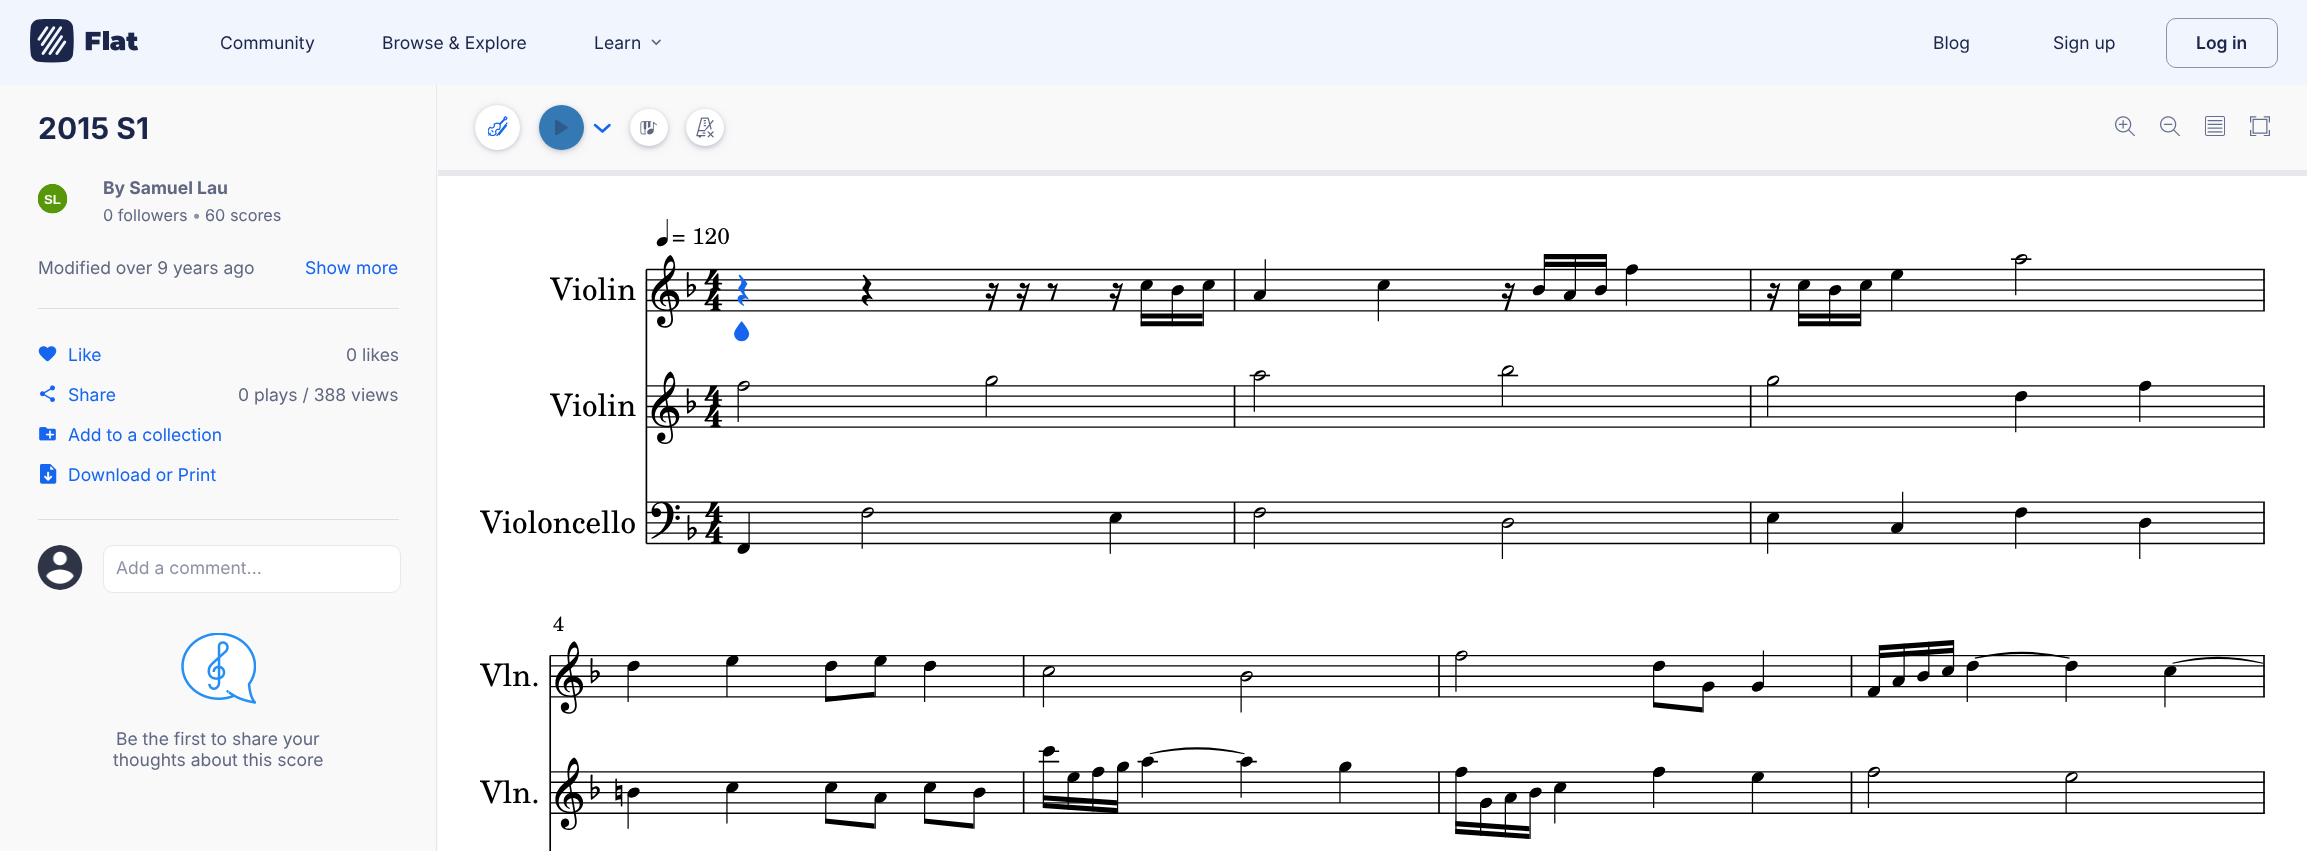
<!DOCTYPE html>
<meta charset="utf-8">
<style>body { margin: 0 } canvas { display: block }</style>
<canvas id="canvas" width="2307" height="851"></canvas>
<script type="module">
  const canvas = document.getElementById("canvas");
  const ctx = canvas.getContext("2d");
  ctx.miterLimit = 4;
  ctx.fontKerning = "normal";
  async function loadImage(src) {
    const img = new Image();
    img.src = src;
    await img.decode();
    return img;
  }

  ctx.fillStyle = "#ffffff";
  ctx.fillRect(0, 0, 2307, 851);
  ctx.fillStyle = "#f1f6fe";
  ctx.fillRect(0, 0, 2307, 85);
  ctx.drawImage(await loadImage("img1.png"), 30, 19, 109, 44);
  ctx.font = "17.5px Inter";
  ctx.fillStyle = "#1c264a";
  ctx.fillText("Community", 220, 49);
  ctx.fillText("Browse & Explore", 382, 49);
  ctx.fillText("Learn", 594, 49);
  ctx.drawImage(await loadImage("img2.png"), 651, 39, 10, 7);
  ctx.fillText("Blog", 1933, 49);
  ctx.fillText("Sign up", 2053, 49);
  ctx.beginPath();
  ctx.roundRect(2166.5, 18.5, 111, 49, 9.5);
  ctx.strokeStyle = "#8d93a5";
  ctx.stroke();
  ctx.font = "600 17.5px Inter";
  ctx.fillText("Log in", 2196, 49);
  ctx.fillStyle = "#f9f9fa";
  ctx.fillRect(0, 85, 438, 766);
  ctx.fillStyle = "#e7e8ec";
  ctx.fillRect(436, 85, 1, 766);
  ctx.font = "bold 30px Inter";
  ctx.fillStyle = "#1c264a";
  ctx.fillText("2015 S1", 38, 139);
  ctx.fillStyle = "#ffffff";
  ctx.beginPath();
  ctx.arc(53, 199, 15, 0, Math.PI * 2);
  ctx.fill();
  ctx.drawImage(await loadImage("img3.png"), 38, 184, 30, 30);
  ctx.font = "bold 17.5px Inter";
  ctx.fillStyle = "#5f6781";
  ctx.fillText("By Samuel Lau", 103, 194);
  ctx.font = "16.25px Inter";
  ctx.fillText("0 followers", 103, 221);
  ctx.fillStyle = "#8d93a5";
  ctx.fillText("•", 192, 221);
  ctx.fillStyle = "#5f6781";
  ctx.fillText("60 scores", 205, 221);
  ctx.font = "17.5px Inter";
  ctx.fillText("Modified over 9 years ago", 38, 274);
  ctx.fillStyle = "#1565ef";
  ctx.fillText("Show more", 305, 274);
  ctx.fillStyle = "#dbdee6";
  ctx.fillRect(38, 308, 361, 1);
  ctx.drawImage(await loadImage("img4.png"), 38, 346, 19, 16);
  ctx.fillStyle = "#1565ef";
  ctx.fillText("Like", 68, 361);
  ctx.fillStyle = "#5f6781";
  ctx.fillText("0 likes", 346, 361);
  ctx.drawImage(await loadImage("img5.png"), 40, 385, 15, 17);
  ctx.fillStyle = "#1565ef";
  ctx.fillText("Share", 68, 401);
  ctx.fillStyle = "#5f6781";
  ctx.fillText("0 plays / 388 views", 238, 401);
  ctx.drawImage(await loadImage("img6.png"), 39, 427, 17, 14);
  ctx.fillStyle = "#1565ef";
  ctx.fillText("Add to a collection", 68, 441);
  ctx.drawImage(await loadImage("img7.png"), 40, 464, 17, 20);
  ctx.fillText("Download or Print", 68, 481);
  ctx.fillStyle = "#dbdee6";
  ctx.fillRect(38, 519, 361, 1);
  ctx.fillStyle = "#ffffff";
  ctx.beginPath();
  ctx.arc(60.5, 567.5, 22.5, 0, Math.PI * 2);
  ctx.fill();
  ctx.drawImage(await loadImage("img8.png"), 37, 545, 46, 45);
  ctx.beginPath();
  ctx.roundRect(103.5, 545.5, 297, 47, 9.5);
  ctx.fill();
  ctx.strokeStyle = "#e7e8ec";
  ctx.stroke();
  ctx.fillStyle = "#8d93a5";
  ctx.fillText("Add a comment...", 116, 574);
  ctx.drawImage(await loadImage("img9.png"), 181, 633, 75, 71);
  ctx.fillStyle = "#5f6781";
  ctx.fillText("Be the first to share your", 116, 745);
  ctx.fillText("thoughts about this score", 113, 766);
  ctx.fillStyle = "#f9f9fa";
  ctx.fillRect(438, 85, 1869, 85);
  ctx.fillStyle = "rgba(40, 48, 79, 0.1)";
  ctx.filter = "blur(5px)";
  ctx.beginPath();
  ctx.roundRect(475, 106, 45, 45, 22.5);
  ctx.fill();
  ctx.filter = "none";
  ctx.fillStyle = "rgba(40, 48, 79, 0.2)";
  ctx.filter = "blur(2px)";
  ctx.beginPath();
  ctx.roundRect(475, 106, 45, 45, 22.5);
  ctx.fill();
  ctx.filter = "none";
  ctx.fillStyle = "#ffffff";
  ctx.beginPath();
  ctx.arc(497.5, 127.5, 22.5, 0, Math.PI * 2);
  ctx.fill();
  ctx.drawImage(await loadImage("img10.png"), 488, 116, 20, 20);
  ctx.fillStyle = "rgba(40, 48, 79, 0.2)";
  ctx.filter = "blur(2px)";
  ctx.beginPath();
  ctx.roundRect(539, 106, 45, 45, 22.5);
  ctx.fill();
  ctx.filter = "none";
  ctx.fillStyle = "rgba(40, 48, 79, 0.1)";
  ctx.filter = "blur(5px)";
  ctx.beginPath();
  ctx.roundRect(539, 108, 45, 45, 22.5);
  ctx.fill();
  ctx.filter = "none";
  ctx.fillStyle = "#3579b4";
  ctx.beginPath();
  ctx.arc(561.5, 127.5, 22.5, 0, Math.PI * 2);
  ctx.fill();
  ctx.drawImage(await loadImage("img11.png"), 555, 119, 13, 17);
  ctx.beginPath();
  ctx.moveTo(595, 125);
  ctx.lineTo(602.5, 131.5);
  ctx.lineTo(609.5, 125);
  ctx.strokeStyle = "#1565ef";
  ctx.lineWidth = 2.5;
  ctx.lineCap = "round";
  ctx.lineJoin = "round";
  ctx.stroke();
  ctx.fillStyle = "rgba(40, 48, 79, 0.2)";
  ctx.filter = "blur(2px)";
  ctx.beginPath();
  ctx.roundRect(630, 110, 38, 38, 19);
  ctx.fill();
  ctx.filter = "none";
  ctx.fillStyle = "rgba(40, 48, 79, 0.1)";
  ctx.filter = "blur(5px)";
  ctx.beginPath();
  ctx.roundRect(630, 111, 38, 38, 19);
  ctx.fill();
  ctx.filter = "none";
  ctx.fillStyle = "#ffffff";
  ctx.beginPath();
  ctx.roundRect(630, 109, 38, 37, 18.5);
  ctx.fill();
  ctx.drawImage(await loadImage("img12.png"), 640, 121, 17, 14);
  ctx.fillStyle = "rgba(40, 48, 79, 0.2)";
  ctx.filter = "blur(2px)";
  ctx.beginPath();
  ctx.roundRect(686, 110, 38, 38, 19);
  ctx.fill();
  ctx.filter = "none";
  ctx.fillStyle = "rgba(40, 48, 79, 0.1)";
  ctx.filter = "blur(5px)";
  ctx.beginPath();
  ctx.roundRect(686, 111, 38, 38, 19);
  ctx.fill();
  ctx.filter = "none";
  ctx.fillStyle = "#ffffff";
  ctx.beginPath();
  ctx.roundRect(686, 109, 38, 37, 18.5);
  ctx.fill();
  ctx.drawImage(await loadImage("img13.png"), 696, 117, 18, 21);
  ctx.drawImage(await loadImage("img14.png"), 2115, 116, 20, 20);
  ctx.drawImage(await loadImage("img15.png"), 2160, 116, 20, 20);
  ctx.drawImage(await loadImage("img16.png"), 2205, 116, 20, 20);
  ctx.drawImage(await loadImage("img17.png"), 2250, 116, 20, 20);
  ctx.fillStyle = "#e7e8ec";
  ctx.fillRect(438, 170, 1869, 6);
  ctx.drawImage(await loadImage("img18.png"), 480, 219, 1785, 340);
  ctx.drawImage(await loadImage("img19.png"), 480, 616, 1785, 235);
</script>
